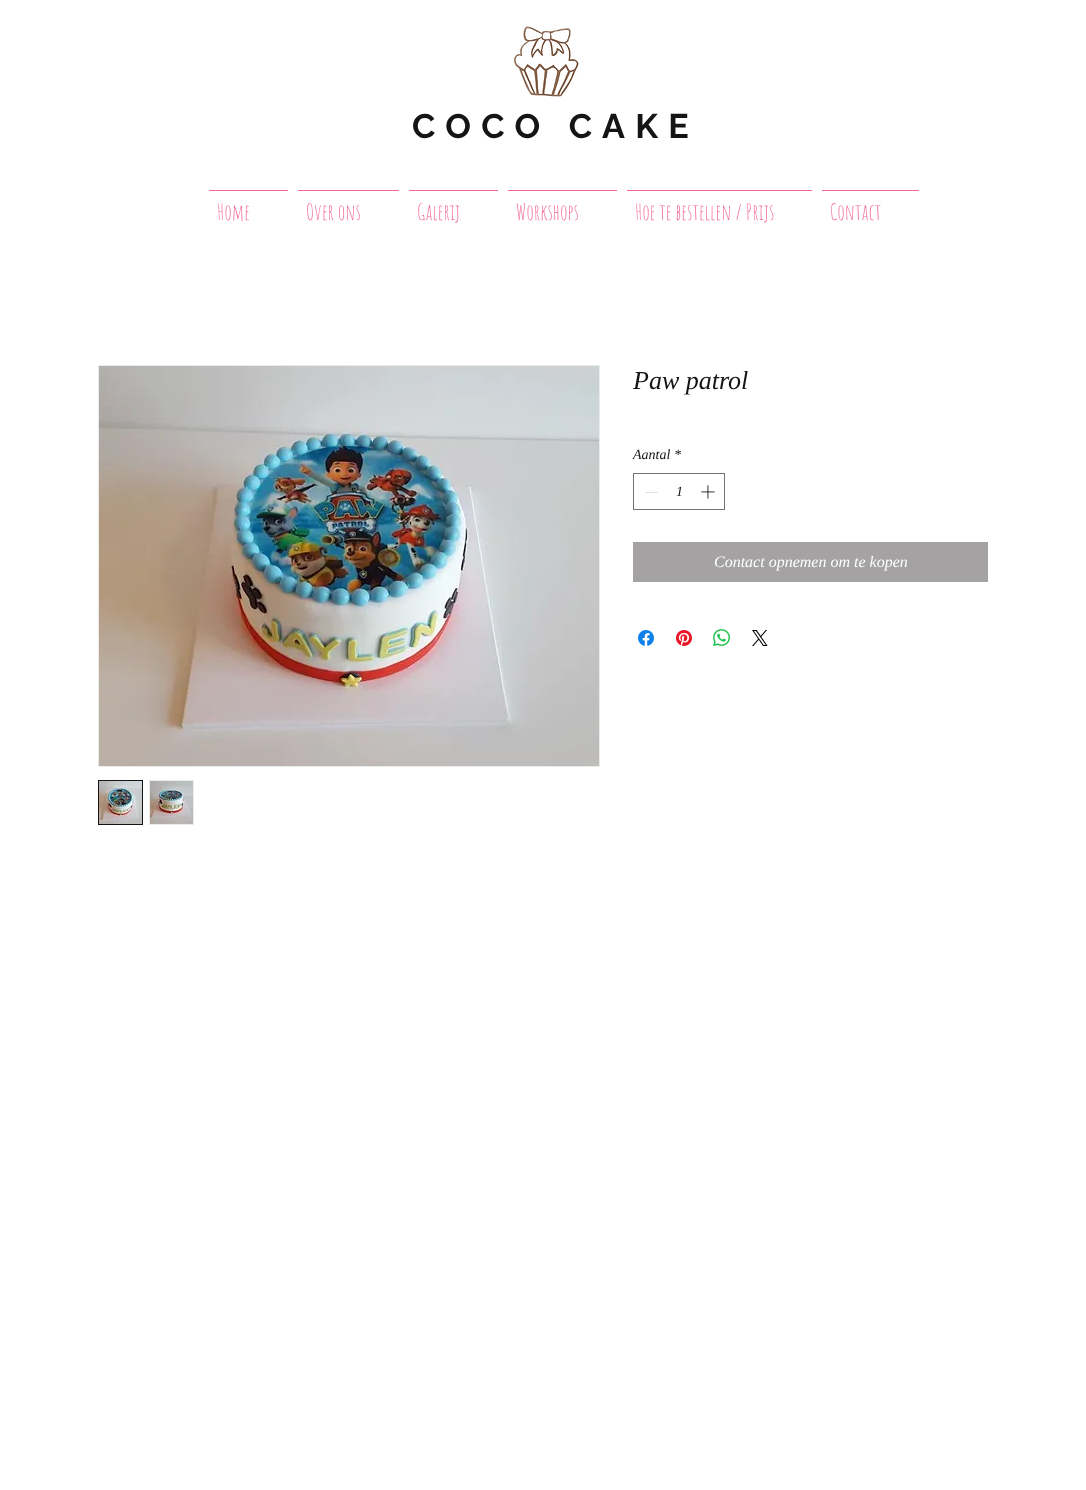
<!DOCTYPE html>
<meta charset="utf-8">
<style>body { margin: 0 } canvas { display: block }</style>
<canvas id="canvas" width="1086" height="1490"></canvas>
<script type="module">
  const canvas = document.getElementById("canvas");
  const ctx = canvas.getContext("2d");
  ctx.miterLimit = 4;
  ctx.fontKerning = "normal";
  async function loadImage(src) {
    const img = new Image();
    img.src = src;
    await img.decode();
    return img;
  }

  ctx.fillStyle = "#ffffff";
  ctx.fillRect(0, 0, 1086, 1490);
  ctx.drawImage(await loadImage("img1.png"), 514, 26, 65, 71);
  ctx.letterSpacing = "10.25px";
  ctx.font = "bold 34px Raleway";
  ctx.fillStyle = "#151515";
  ctx.fillText("COCO CAKE", 412, 138);
  ctx.fillStyle = "#f2668f";
  ctx.fillRect(209, 190, 79, 1);
  ctx.letterSpacing = "0px";
  ctx.font = "22px Amatic SC";
  ctx.fillText("Home", 217, 220);
  ctx.fillRect(298, 190, 101, 1);
  ctx.fillText("Over ons", 306, 220);
  ctx.fillRect(409, 190, 89, 1);
  ctx.fillText("Galerij", 417, 220);
  ctx.fillRect(508, 190, 109, 1);
  ctx.fillText("Workshops", 516, 220);
  ctx.fillRect(627, 190, 185, 1);
  ctx.fillText("Hoe te bestellen / Prijs", 635, 220);
  ctx.fillRect(822, 190, 97, 1);
  ctx.fillText("Contact", 830, 220);
  ctx.strokeStyle = "#ebebeb";
  ctx.strokeRect(98.5, 365.5, 501, 401);
  ctx.drawImage(await loadImage("img2.png"), 99, 366, 500, 400);
  ctx.strokeStyle = "#151515";
  ctx.strokeRect(98.5, 780.5, 44, 44);
  ctx.drawImage(await loadImage("img3.png"), 99, 781, 43, 43);
  ctx.fillStyle = "#ebebeb";
  ctx.fillRect(149, 780, 45, 45);
  ctx.drawImage(await loadImage("img4.png"), 150, 781, 43, 43);
  ctx.font = "italic 26px Liberation Serif";
  ctx.fillStyle = "#151515";
  ctx.fillText("Paw patrol", 633, 389);
  ctx.font = "italic 14px Liberation Serif";
  ctx.fillText("Aantal", 633, 459);
  ctx.fillText("*", 674, 459);
  ctx.strokeStyle = "#737373";
  ctx.strokeRect(633.5, 473.5, 91, 36);
  ctx.fillStyle = "#e3e3e3";
  ctx.fillRect(645, 492, 13, 1);
  ctx.fillStyle = "#151515";
  ctx.fillText("1", 676, 496);
  ctx.drawImage(await loadImage("img5.png"), 701, 485, 14, 14);
  ctx.fillStyle = "#a4a2a2";
  ctx.fillRect(633, 542, 355, 40);
  ctx.font = "italic 16px Liberation Serif";
  ctx.fillStyle = "#ffffff";
  ctx.fillText("Contact opnemen om te kopen", 714, 567);
  ctx.drawImage(await loadImage("img6.png"), 638, 630, 16, 16);
  ctx.drawImage(await loadImage("img7.png"), 676, 630, 16, 16);
  ctx.drawImage(await loadImage("img8.png"), 713, 629, 17, 17);
  ctx.drawImage(await loadImage("img9.png"), 752, 630, 16, 16);
</script>
